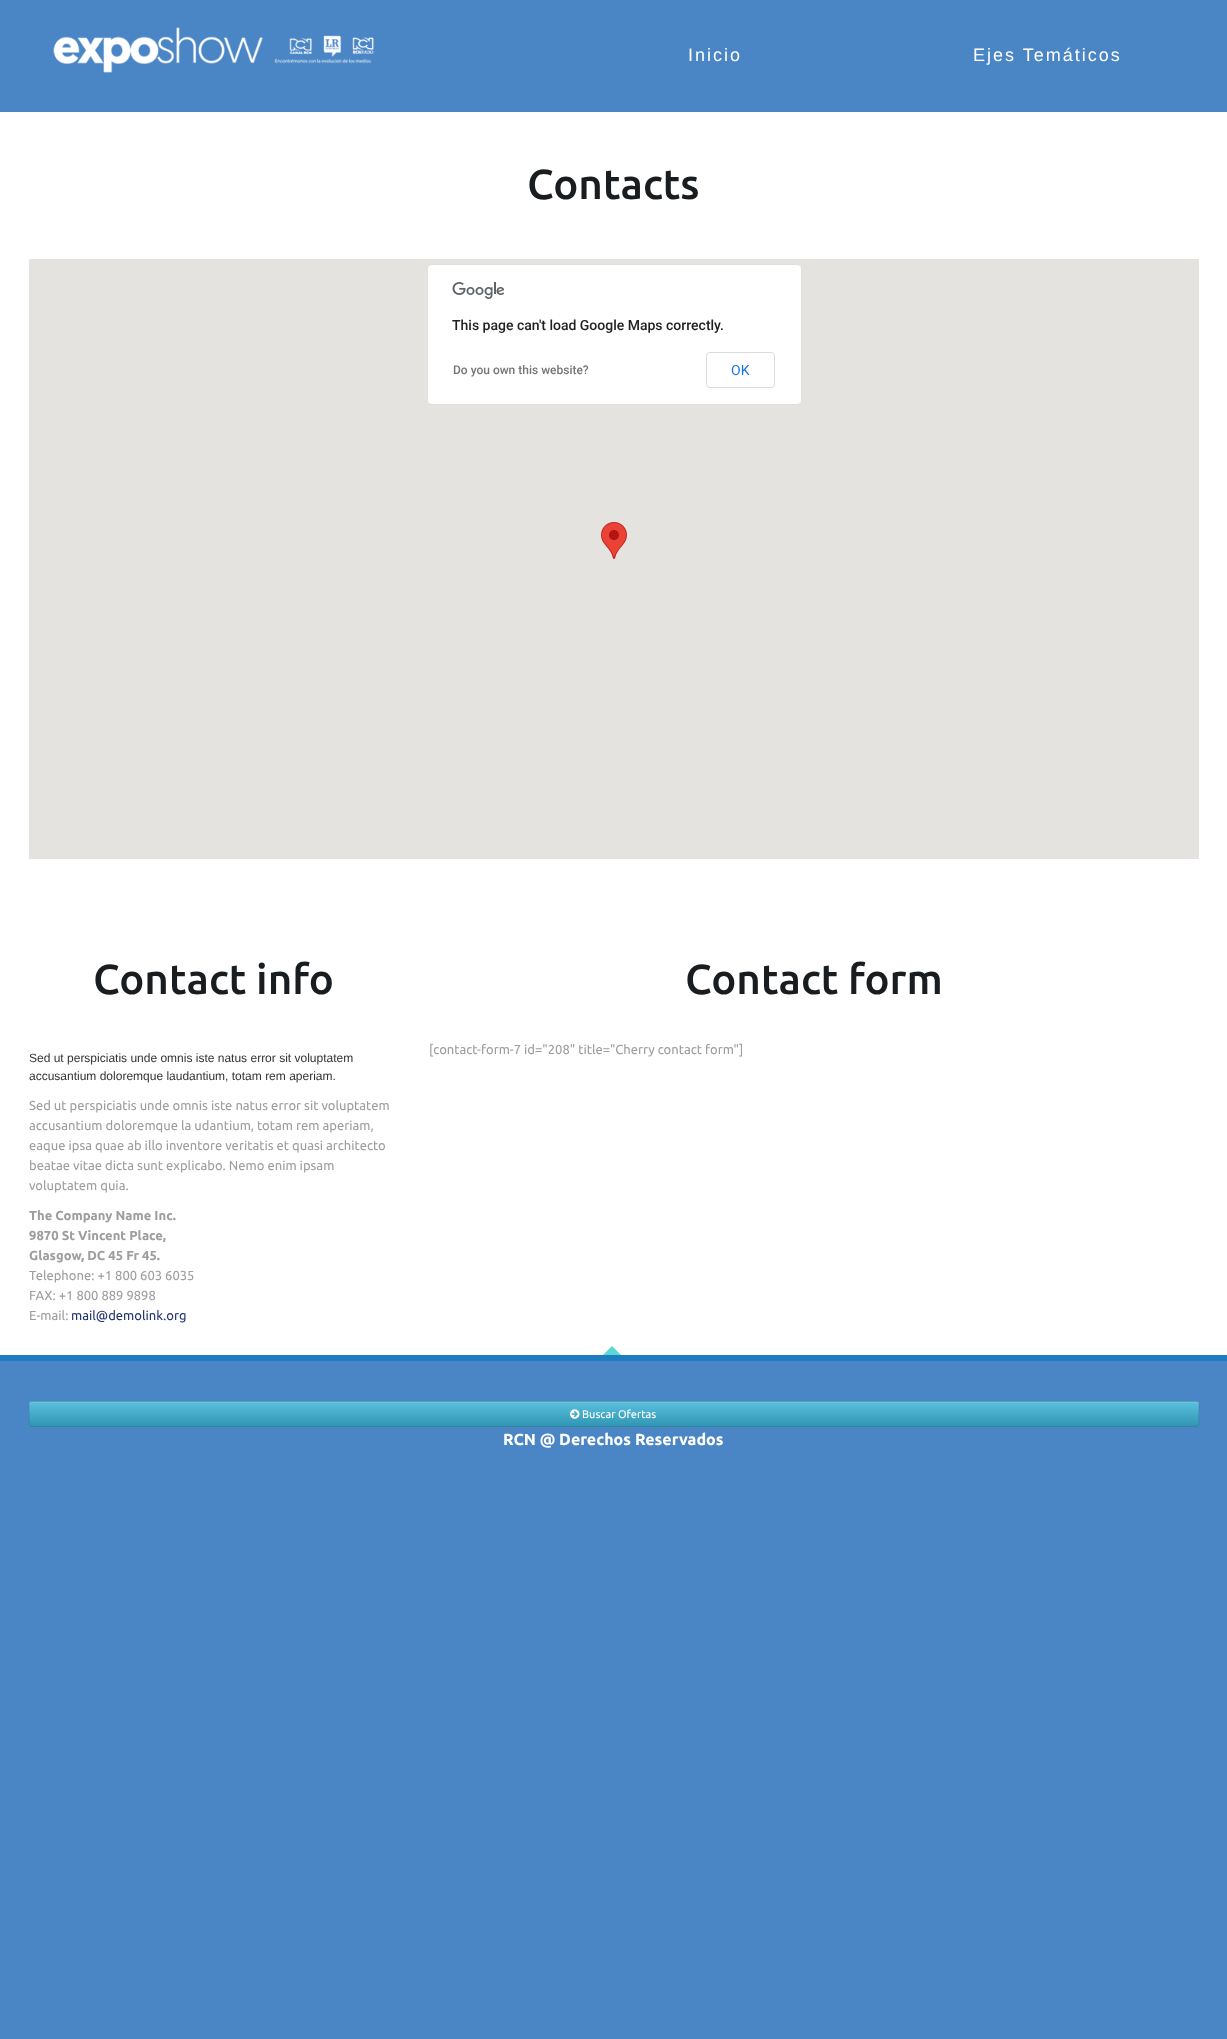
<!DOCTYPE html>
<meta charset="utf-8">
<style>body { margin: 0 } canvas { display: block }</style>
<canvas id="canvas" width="1227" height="2039"></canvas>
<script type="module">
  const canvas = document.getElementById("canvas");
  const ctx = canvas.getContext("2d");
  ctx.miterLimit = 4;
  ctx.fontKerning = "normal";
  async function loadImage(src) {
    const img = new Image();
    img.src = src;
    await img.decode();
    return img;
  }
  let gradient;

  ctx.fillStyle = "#4a86c6";
  ctx.fillRect(0, 0, 1227, 2039);
  ctx.drawImage(await loadImage("img1.png"), 53, 27, 321, 46);
  ctx.letterSpacing = "2px";
  ctx.font = "18px Liberation Sans";
  ctx.fillStyle = "#ffffff";
  ctx.fillText("Inicio", 688, 61);
  ctx.fillText("Ejes Temáticos", 973, 61);
  ctx.fillRect(0, 112, 1227, 1243);
  ctx.letterSpacing = "0px";
  ctx.font = "500 42px Ubuntu";
  ctx.fillStyle = "#191d20";
  ctx.fillText("Contacts", 527, 199);
  ctx.fillStyle = "#e5e3df";
  ctx.fillRect(29, 259, 1170, 600);
  ctx.drawImage(await loadImage("img2.png"), 601, 522, 26, 37);
  ctx.fillStyle = "#ffffff";
  ctx.beginPath();
  ctx.roundRect(427, 264, 375, 141, 5);
  ctx.fill();
  ctx.beginPath();
  ctx.roundRect(427.5, 264.5, 374, 140, 4.5);
  ctx.strokeStyle = "rgba(0, 0, 0, 0.12)";
  ctx.stroke();
  ctx.drawImage(await loadImage("img3.png"), 452, 282, 52, 17);
  ctx.font = "500 14px Roboto";
  ctx.fillStyle = "#212121";
  ctx.fillText("This page can't load Google Maps correctly.", 452, 330);
  ctx.font = "500 12px Roboto";
  ctx.fillStyle = "#757575";
  ctx.fillText("Do you own this website?", 453, 374);
  ctx.beginPath();
  ctx.roundRect(706.5, 352.5, 68, 35, 3.5);
  ctx.strokeStyle = "#dadce0";
  ctx.stroke();
  ctx.font = "14px Roboto";
  ctx.fillStyle = "#1a73e8";
  ctx.fillText("OK", 731, 375);
  ctx.font = "500 42px Ubuntu";
  ctx.fillStyle = "#191d20";
  ctx.fillText("Contact info", 93, 994);
  ctx.font = "12px Liberation Sans";
  ctx.fillStyle = "#333333";
  ctx.fillText("Sed ut perspiciatis unde omnis iste natus error sit voluptatem", 29, 1062);
  ctx.fillText("accusantium doloremque laudantium, totam rem aperiam.", 29, 1080);
  ctx.font = "13px Ubuntu";
  ctx.fillStyle = "#9e9e9e";
  ctx.fillText("Sed ut perspiciatis unde omnis iste natus error sit voluptatem", 29, 1110);
  ctx.fillText("accusantium doloremque la udantium, totam rem aperiam,", 29, 1130);
  ctx.fillText("eaque ipsa quae ab illo inventore veritatis et quasi architecto", 29, 1150);
  ctx.fillText("beatae vitae dicta sunt explicabo. Nemo enim ipsam", 29, 1170);
  ctx.fillText("voluptatem quia.", 29, 1190);
  ctx.font = "bold 13px Ubuntu";
  ctx.fillText("The Company Name Inc.", 29, 1220);
  ctx.fillText("9870 St Vincent Place,", 29, 1240);
  ctx.fillText("Glasgow, DC 45 Fr 45.", 29, 1260);
  ctx.font = "13px Ubuntu";
  ctx.fillText("Telephone: +1 800 603 6035", 29, 1280);
  ctx.fillText("FAX: +1 800 889 9898", 29, 1300);
  ctx.fillText("E-mail:", 29, 1320);
  ctx.fillStyle = "#243575";
  ctx.fillText("mail@demolink.org", 71, 1320);
  ctx.font = "500 42px Ubuntu";
  ctx.fillStyle = "#191d20";
  ctx.fillText("Contact form", 685, 994);
  ctx.font = "13px Ubuntu";
  ctx.fillStyle = "#9e9e9e";
  ctx.fillText("[contact-form-7 id=\"208\" title=\"Cherry contact form\"]", 429, 1054);
  ctx.fillStyle = "#1e7dc1";
  ctx.fillRect(0, 1355, 1227, 6);
  ctx.fillStyle = "#5dd7d4";
  ctx.beginPath();
  ctx.moveTo(621, 1355);
  ctx.lineTo(603, 1355);
  ctx.lineTo(612, 1346);
  ctx.closePath();
  ctx.fill();
  ctx.fillStyle = "#49afcd";
  ctx.beginPath();
  ctx.roundRect(29, 1401, 1170, 26, 3);
  ctx.fill();
  ctx.save();
  ctx.beginPath();
  ctx.roundRect(29, 1401, 1170, 26, 3);
  ctx.clip();
  gradient = ctx.createLinearGradient(614, 1402, 614, 1426);
  gradient.addColorStop(0, "#5bc0de");
  gradient.addColorStop(1, "#2f96b4");
  ctx.fillStyle = gradient;
  ctx.fillRect(29, 1402, 1170, 24);
  ctx.restore();
  ctx.fillStyle = "#7bcce4";
  ctx.beginPath();
  ctx.moveTo(32, 1403);
  ctx.lineTo(1196, 1403);
  ctx.bezierCurveTo(1197, 1403, 1198, 1404, 1198, 1405);
  ctx.lineTo(1198, 1403);
  ctx.lineTo(1196, 1402);
  ctx.lineTo(32, 1402);
  ctx.bezierCurveTo(31, 1402, 30, 1403, 30, 1404);
  ctx.lineTo(30, 1405);
  ctx.bezierCurveTo(30, 1404, 31, 1403, 32, 1403);
  ctx.closePath();
  ctx.fill();
  ctx.beginPath();
  ctx.moveTo(1198, 1426);
  ctx.lineTo(1196, 1426.5);
  ctx.lineTo(32, 1426.5);
  ctx.lineTo(30, 1426);
  ctx.strokeStyle = "rgba(0, 0, 0, 0.25)";
  ctx.stroke();
  ctx.beginPath();
  ctx.moveTo(30, 1426);
  ctx.bezierCurveTo(28.5, 1424, 29.5, 1416.5, 29.5, 1414);
  ctx.bezierCurveTo(29.5, 1412, 28, 1403, 31, 1402);
  ctx.lineTo(1197, 1402);
  ctx.bezierCurveTo(1200, 1403, 1198.5, 1412, 1198.5, 1414);
  ctx.bezierCurveTo(1198.5, 1416.5, 1199.5, 1424, 1198, 1426);
  ctx.strokeStyle = "rgba(0, 0, 0, 0.1)";
  ctx.stroke();
  ctx.drawImage(await loadImage("img4.png"), 570, 1409, 10, 10);
  ctx.font = "11px Ubuntu";
  ctx.fillStyle = "#ffffff";
  ctx.fillText("Buscar Ofertas", 582, 1418);
  ctx.font = "bold 16px Ubuntu";
  ctx.fillText("RCN @ Derechos Reservados", 503, 1445);
</script>
